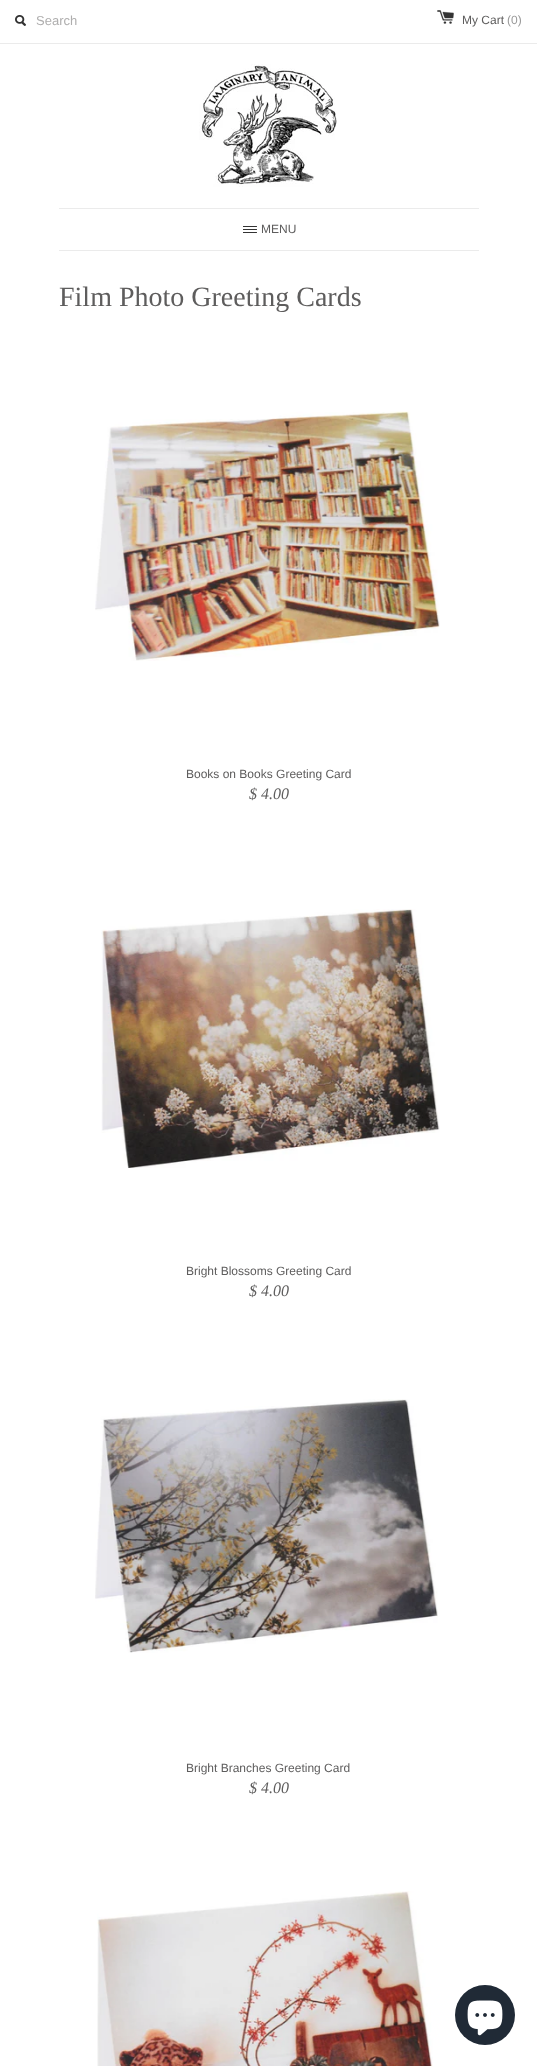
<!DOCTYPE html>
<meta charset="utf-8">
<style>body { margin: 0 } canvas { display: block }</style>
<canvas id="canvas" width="537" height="2066"></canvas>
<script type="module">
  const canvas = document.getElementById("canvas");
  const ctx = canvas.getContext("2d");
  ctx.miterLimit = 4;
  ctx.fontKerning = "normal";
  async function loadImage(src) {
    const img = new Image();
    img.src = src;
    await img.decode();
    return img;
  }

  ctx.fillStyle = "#ffffff";
  ctx.fillRect(0, 0, 537, 2066);
  ctx.fillStyle = "#ebebeb";
  ctx.fillRect(0, 43, 537, 1);
  ctx.drawImage(await loadImage("img1.png"), 15, 15, 11, 11);
  ctx.font = "13px Liberation Sans";
  ctx.fillStyle = "#afaeae";
  ctx.fillText("Search", 36, 25);
  ctx.drawImage(await loadImage("img2.png"), 437, 10, 17, 14);
  ctx.font = "12px Liberation Sans";
  ctx.fillStyle = "#5e5d5d";
  ctx.fillText("My Cart", 462, 24);
  ctx.fillStyle = "#999999";
  ctx.fillText("(0)", 507, 24);
  ctx.drawImage(await loadImage("img3.png"), 199, 64, 138, 123);
  ctx.fillStyle = "#ebebeb";
  ctx.fillRect(59, 208, 420, 1);
  ctx.drawImage(await loadImage("img4.png"), 243, 226, 14, 7);
  ctx.fillStyle = "#5e5d5d";
  ctx.fillText("MENU", 261, 233);
  ctx.fillStyle = "#ebebeb";
  ctx.fillRect(59, 250, 420, 1);
  ctx.font = "28px Liberation Serif";
  ctx.fillStyle = "#5e5d5d";
  ctx.fillText("Film Photo Greeting Cards", 59, 306);
  ctx.drawImage(await loadImage("img5.png"), 95, 411, 345, 250);
  ctx.font = "12px Liberation Sans";
  ctx.fillText("Books on Books Greeting Card", 186, 778);
  ctx.font = "italic 16px Liberation Serif";
  ctx.fillText("$ 4.00", 249, 799);
  ctx.drawImage(await loadImage("img6.png"), 101, 909, 339, 259);
  ctx.font = "12px Liberation Sans";
  ctx.fillText("Bright Blossoms Greeting Card", 186, 1275);
  ctx.font = "italic 16px Liberation Serif";
  ctx.fillText("$ 4.00", 249, 1296);
  ctx.drawImage(await loadImage("img7.png"), 95, 1399, 343, 254);
  ctx.font = "12px Liberation Sans";
  ctx.fillText("Bright Branches Greeting Card", 186, 1772);
  ctx.font = "italic 16px Liberation Serif";
  ctx.fillText("$ 4.00", 249, 1793);
  ctx.drawImage(await loadImage("img8.png"), 97, 1891, 336, 175);
  ctx.fillStyle = "#202a36";
  ctx.beginPath();
  ctx.arc(485, 2015, 30, 0, Math.PI * 2);
  ctx.fill();
  ctx.drawImage(await loadImage("img9.png"), 467, 2000, 36, 36);
</script>
